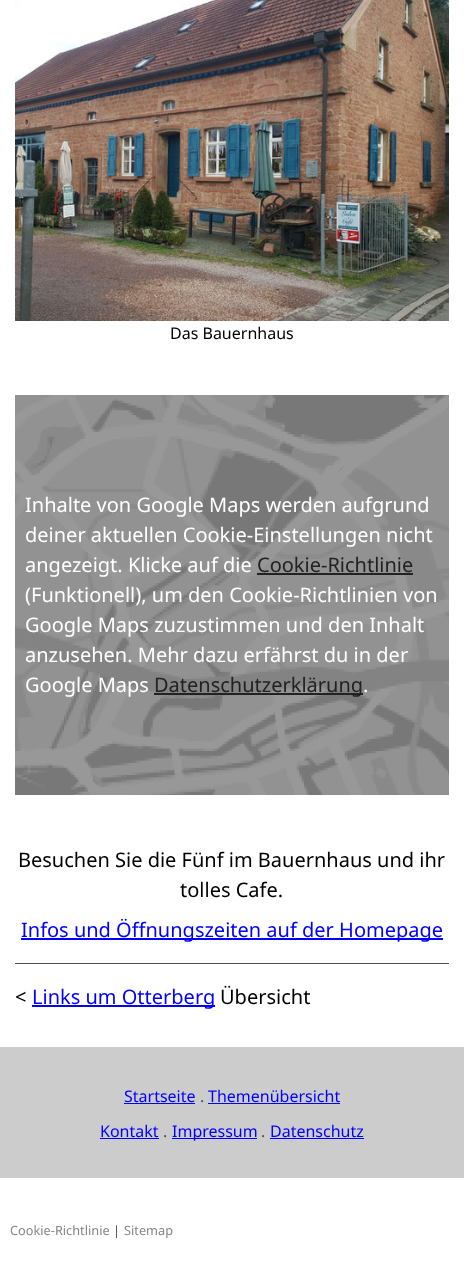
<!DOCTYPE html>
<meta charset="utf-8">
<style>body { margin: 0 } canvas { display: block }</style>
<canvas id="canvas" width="464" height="1265"></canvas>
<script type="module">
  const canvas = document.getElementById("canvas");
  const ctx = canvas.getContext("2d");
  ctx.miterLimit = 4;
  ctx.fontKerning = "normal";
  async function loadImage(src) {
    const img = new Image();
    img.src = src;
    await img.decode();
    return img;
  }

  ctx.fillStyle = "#ffffff";
  ctx.fillRect(0, 0, 464, 1265);
  ctx.drawImage(await loadImage("img1.png"), 15, 0, 434, 321);
  ctx.font = "16px Noto Sans";
  ctx.fillStyle = "#000000";
  ctx.fillText("Das Bauernhaus", 170, 339);
  ctx.drawImage(await loadImage("img2.png"), 15, 395, 434, 400);
  ctx.font = "20px Noto Sans";
  ctx.fillStyle = "#ffffff";
  ctx.fillText("Inhalte von Google Maps werden aufgrund", 25, 512);
  ctx.fillText("deiner aktuellen Cookie-Einstellungen nicht", 25, 542);
  ctx.fillText("angezeigt. Klicke auf die", 25, 572);
  ctx.fillStyle = "#222222";
  ctx.fillText("Cookie-Richtlinie", 257, 572);
  ctx.fillRect(257, 573, 156, 2);
  ctx.fillStyle = "#ffffff";
  ctx.fillText("(Funktionell), um den Cookie-Richtlinien von", 25, 602);
  ctx.fillText("Google Maps zuzustimmen und den Inhalt", 25, 632);
  ctx.fillText("anzusehen. Mehr dazu erfährst du in der", 25, 662);
  ctx.fillText("Google Maps", 25, 692);
  ctx.fillStyle = "#222222";
  ctx.fillRect(154, 693, 209, 2);
  ctx.fillText("Datenschutzerklärung", 154, 692);
  ctx.fillStyle = "#ffffff";
  ctx.fillText(".", 363, 692);
  ctx.fillStyle = "#000000";
  ctx.fillText("Besuchen Sie die Fünf im Bauernhaus und ihr", 18, 867);
  ctx.fillText("tolles Cafe.", 180, 897);
  ctx.fillStyle = "#0000ff";
  ctx.fillRect(21, 938, 422, 2);
  ctx.fillText("Infos und Öffnungszeiten auf der Homepage", 21, 937);
  ctx.fillStyle = "#4e5056";
  ctx.fillRect(15, 963, 434, 1);
  ctx.fillStyle = "#000000";
  ctx.fillText("<", 15, 1004);
  ctx.fillStyle = "#0000ff";
  ctx.fillRect(32, 1005, 183, 2);
  ctx.fillText("Links um Otterberg", 32, 1004);
  ctx.fillStyle = "#000000";
  ctx.fillText("Übersicht", 220, 1004);
  ctx.fillStyle = "#cccccc";
  ctx.fillRect(0, 1047, 464, 131);
  ctx.font = "16px Noto Sans";
  ctx.fillStyle = "#0000ff";
  ctx.fillText("Startseite", 124, 1102);
  ctx.fillStyle = "#4e5056";
  ctx.fillText(".", 200, 1102);
  ctx.fillStyle = "#0000ff";
  ctx.fillRect(124, 1103, 71, 1);
  ctx.fillRect(208, 1103, 132, 1);
  ctx.fillText("Themenübersicht", 208, 1102);
  ctx.fillText("Kontakt", 100, 1137);
  ctx.fillStyle = "#4e5056";
  ctx.fillText(".", 163, 1137);
  ctx.fillStyle = "#0000ff";
  ctx.fillRect(100, 1138, 59, 1);
  ctx.fillRect(172, 1138, 85, 1);
  ctx.fillText("Impressum", 172, 1137);
  ctx.fillStyle = "#4e5056";
  ctx.fillText(".", 261, 1137);
  ctx.fillStyle = "#0000ff";
  ctx.fillRect(270, 1138, 94, 1);
  ctx.fillText("Datenschutz", 270, 1137);
  ctx.font = "12.75px Noto Sans";
  ctx.fillStyle = "#838589";
  ctx.fillText("Cookie-Richtlinie", 10, 1235);
  ctx.fillStyle = "#4e5056";
  ctx.fillText("|", 113, 1235);
  ctx.fillStyle = "#838589";
  ctx.fillText("Sitemap", 124, 1235);
</script>
